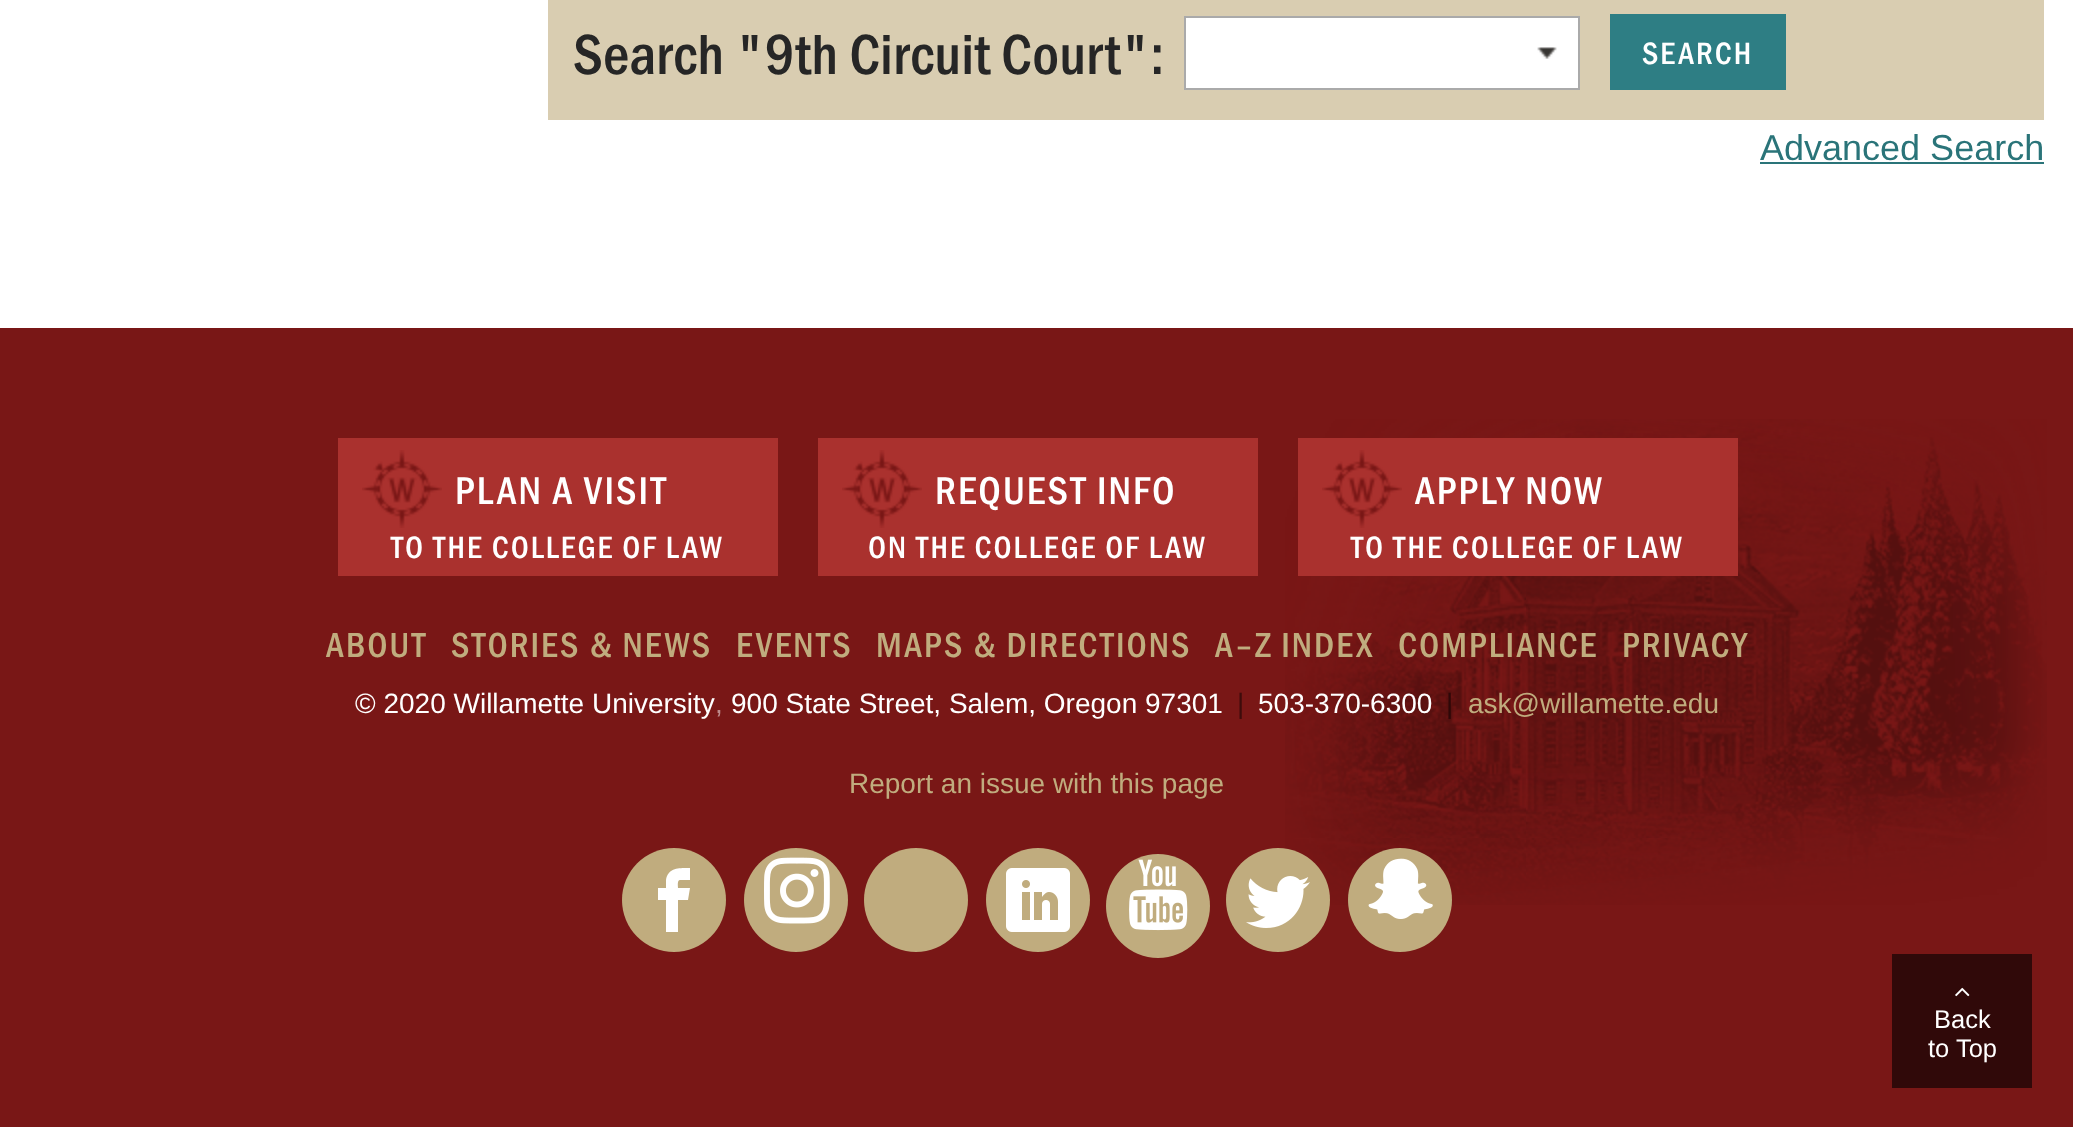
<!DOCTYPE html>
<meta charset="utf-8">
<style>body { margin: 0 } canvas { display: block }</style>
<canvas id="canvas" width="2073" height="1127"></canvas>
<script type="module">
  const canvas = document.getElementById("canvas");
  const ctx = canvas.getContext("2d");
  ctx.miterLimit = 4;
  ctx.fontKerning = "normal";
  async function loadImage(src) {
    const img = new Image();
    img.src = src;
    await img.decode();
    return img;
  }

  ctx.fillStyle = "#ffffff";
  ctx.fillRect(0, 0, 2073, 1127);
  ctx.fillStyle = "#d9cdb1";
  ctx.fillRect(548, 0, 1496, 120);
  ctx.font = "500 58.5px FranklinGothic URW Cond";
  ctx.fillStyle = "#262626";
  ctx.fillText("Search \"9th Circuit Court\":", 573, 74);
  ctx.fillStyle = "#ffffff";
  ctx.fillRect(1186, 18, 392, 70);
  ctx.drawImage(await loadImage("img1.png"), 1537, 47, 20, 12);
  ctx.strokeStyle = "#aaaaaa";
  ctx.lineWidth = 2;
  ctx.strokeRect(1185, 17, 394, 72);
  ctx.fillStyle = "#2e7e84";
  ctx.fillRect(1610, 14, 176, 76);
  ctx.letterSpacing = "2px";
  ctx.font = "500 32px FranklinGothic URW Cond";
  ctx.fillStyle = "#ffffff";
  ctx.fillText("SEARCH", 1642, 64);
  ctx.letterSpacing = "0px";
  ctx.font = "36px Liberation Sans";
  ctx.fillStyle = "#2a7479";
  ctx.fillText("Advanced Search", 1760, 160);
  ctx.fillRect(1760, 162, 284, 2);
  ctx.fillStyle = "#791716";
  ctx.fillRect(0, 328, 2073, 799);
  ctx.drawImage(await loadImage("img2.png"), 1285, 419, 762, 486);
  ctx.fillStyle = "#aa312e";
  ctx.fillRect(338, 438, 440, 138);
  ctx.drawImage(await loadImage("img3.png"), 362, 450, 80, 78);
  ctx.letterSpacing = "2px";
  ctx.font = "500 40px FranklinGothic URW Cond";
  ctx.fillStyle = "#ffffff";
  ctx.fillText("PLAN A VISIT", 455, 504);
  ctx.font = "500 32px FranklinGothic URW Cond";
  ctx.fillText("TO THE COLLEGE OF LAW", 391, 558);
  ctx.fillStyle = "#aa312e";
  ctx.fillRect(818, 438, 440, 138);
  ctx.drawImage(await loadImage("img3.png"), 842, 450, 80, 78);
  ctx.font = "500 40px FranklinGothic URW Cond";
  ctx.fillStyle = "#ffffff";
  ctx.fillText("REQUEST INFO", 935, 504);
  ctx.font = "500 32px FranklinGothic URW Cond";
  ctx.fillText("ON THE COLLEGE OF LAW", 868, 558);
  ctx.fillStyle = "#aa312e";
  ctx.fillRect(1298, 438, 440, 138);
  ctx.drawImage(await loadImage("img3.png"), 1322, 450, 80, 78);
  ctx.font = "500 40px FranklinGothic URW Cond";
  ctx.fillStyle = "#ffffff";
  ctx.fillText("APPLY NOW", 1415, 504);
  ctx.font = "500 32px FranklinGothic URW Cond";
  ctx.fillText("TO THE COLLEGE OF LAW", 1351, 558);
  ctx.font = "500 36px FranklinGothic URW Cond";
  ctx.fillStyle = "#c0ac7e";
  ctx.fillText("ABOUT", 326, 657);
  ctx.fillText("STORIES & NEWS", 451, 657);
  ctx.fillText("EVENTS", 736, 657);
  ctx.fillText("MAPS & DIRECTIONS", 876, 657);
  ctx.fillText("A–Z INDEX", 1215, 657);
  ctx.fillText("COMPLIANCE", 1398, 657);
  ctx.fillText("PRIVACY", 1622, 657);
  ctx.letterSpacing = "0px";
  ctx.font = "28px Liberation Sans";
  ctx.fillStyle = "#ffffff";
  ctx.fillText("© 2020 Willamette University", 355, 713);
  ctx.fillStyle = "#bc8b8b";
  ctx.fillText(",", 715, 713);
  ctx.fillStyle = "#ffffff";
  ctx.fillText("900 State Street, Salem, Oregon 97301", 731, 713);
  ctx.fillStyle = "#3d0c0b";
  ctx.fillText("|", 1237, 713);
  ctx.fillStyle = "#ffffff";
  ctx.fillText("503-370-6300", 1258, 713);
  ctx.fillStyle = "#2d0808";
  ctx.fillText("|", 1446, 713);
  ctx.fillStyle = "#c0ac7e";
  ctx.fillText("ask@willamette.edu", 1468, 713);
  ctx.fillText("Report an issue with this page", 849, 793);
  ctx.beginPath();
  ctx.arc(674, 900, 52, 0, Math.PI * 2);
  ctx.fill();
  ctx.fillStyle = "#ffffff";
  ctx.beginPath();
  ctx.moveTo(680, 880);
  ctx.lineTo(690, 880);
  ctx.lineTo(690, 868);
  ctx.bezierCurveTo(680, 868, 668, 867, 666, 880);
  ctx.lineTo(666, 888);
  ctx.lineTo(658, 888);
  ctx.lineTo(658, 900);
  ctx.lineTo(666, 900);
  ctx.lineTo(666, 932);
  ctx.lineTo(678, 932);
  ctx.lineTo(678, 900);
  ctx.lineTo(688, 900);
  ctx.lineTo(690, 888);
  ctx.lineTo(678, 888);
  ctx.bezierCurveTo(678, 886, 677, 880, 680, 880);
  ctx.closePath();
  ctx.fill();
  ctx.fillStyle = "#c0ac7e";
  ctx.beginPath();
  ctx.arc(796, 900, 52, 0, Math.PI * 2);
  ctx.fill();
  ctx.drawImage(await loadImage("img4.png"), 764, 857, 66, 67);
  ctx.beginPath();
  ctx.arc(916, 900, 52, 0, Math.PI * 2);
  ctx.fill();
  ctx.beginPath();
  ctx.arc(1038, 900, 52, 0, Math.PI * 2);
  ctx.fill();
  ctx.drawImage(await loadImage("img5.png"), 1006, 868, 64, 64);
  ctx.beginPath();
  ctx.arc(1158, 906, 52, 0, Math.PI * 2);
  ctx.fill();
  ctx.drawImage(await loadImage("img6.png"), 1129, 859, 59, 72);
  ctx.beginPath();
  ctx.arc(1278, 900, 52, 0, Math.PI * 2);
  ctx.fill();
  ctx.drawImage(await loadImage("img7.png"), 1246, 876, 64, 52);
  ctx.beginPath();
  ctx.arc(1400, 900, 52, 0, Math.PI * 2);
  ctx.fill();
  ctx.drawImage(await loadImage("img8.png"), 1368, 858, 65, 61);
  ctx.fillStyle = "#300909";
  ctx.fillRect(1892, 954, 140, 134);
  ctx.drawImage(await loadImage("img9.png"), 1955, 987, 15, 10);
  ctx.font = "25.5px Liberation Sans";
  ctx.fillStyle = "#ffffff";
  ctx.fillText("Back", 1934, 1028);
  ctx.fillText("to Top", 1928, 1057);
</script>
